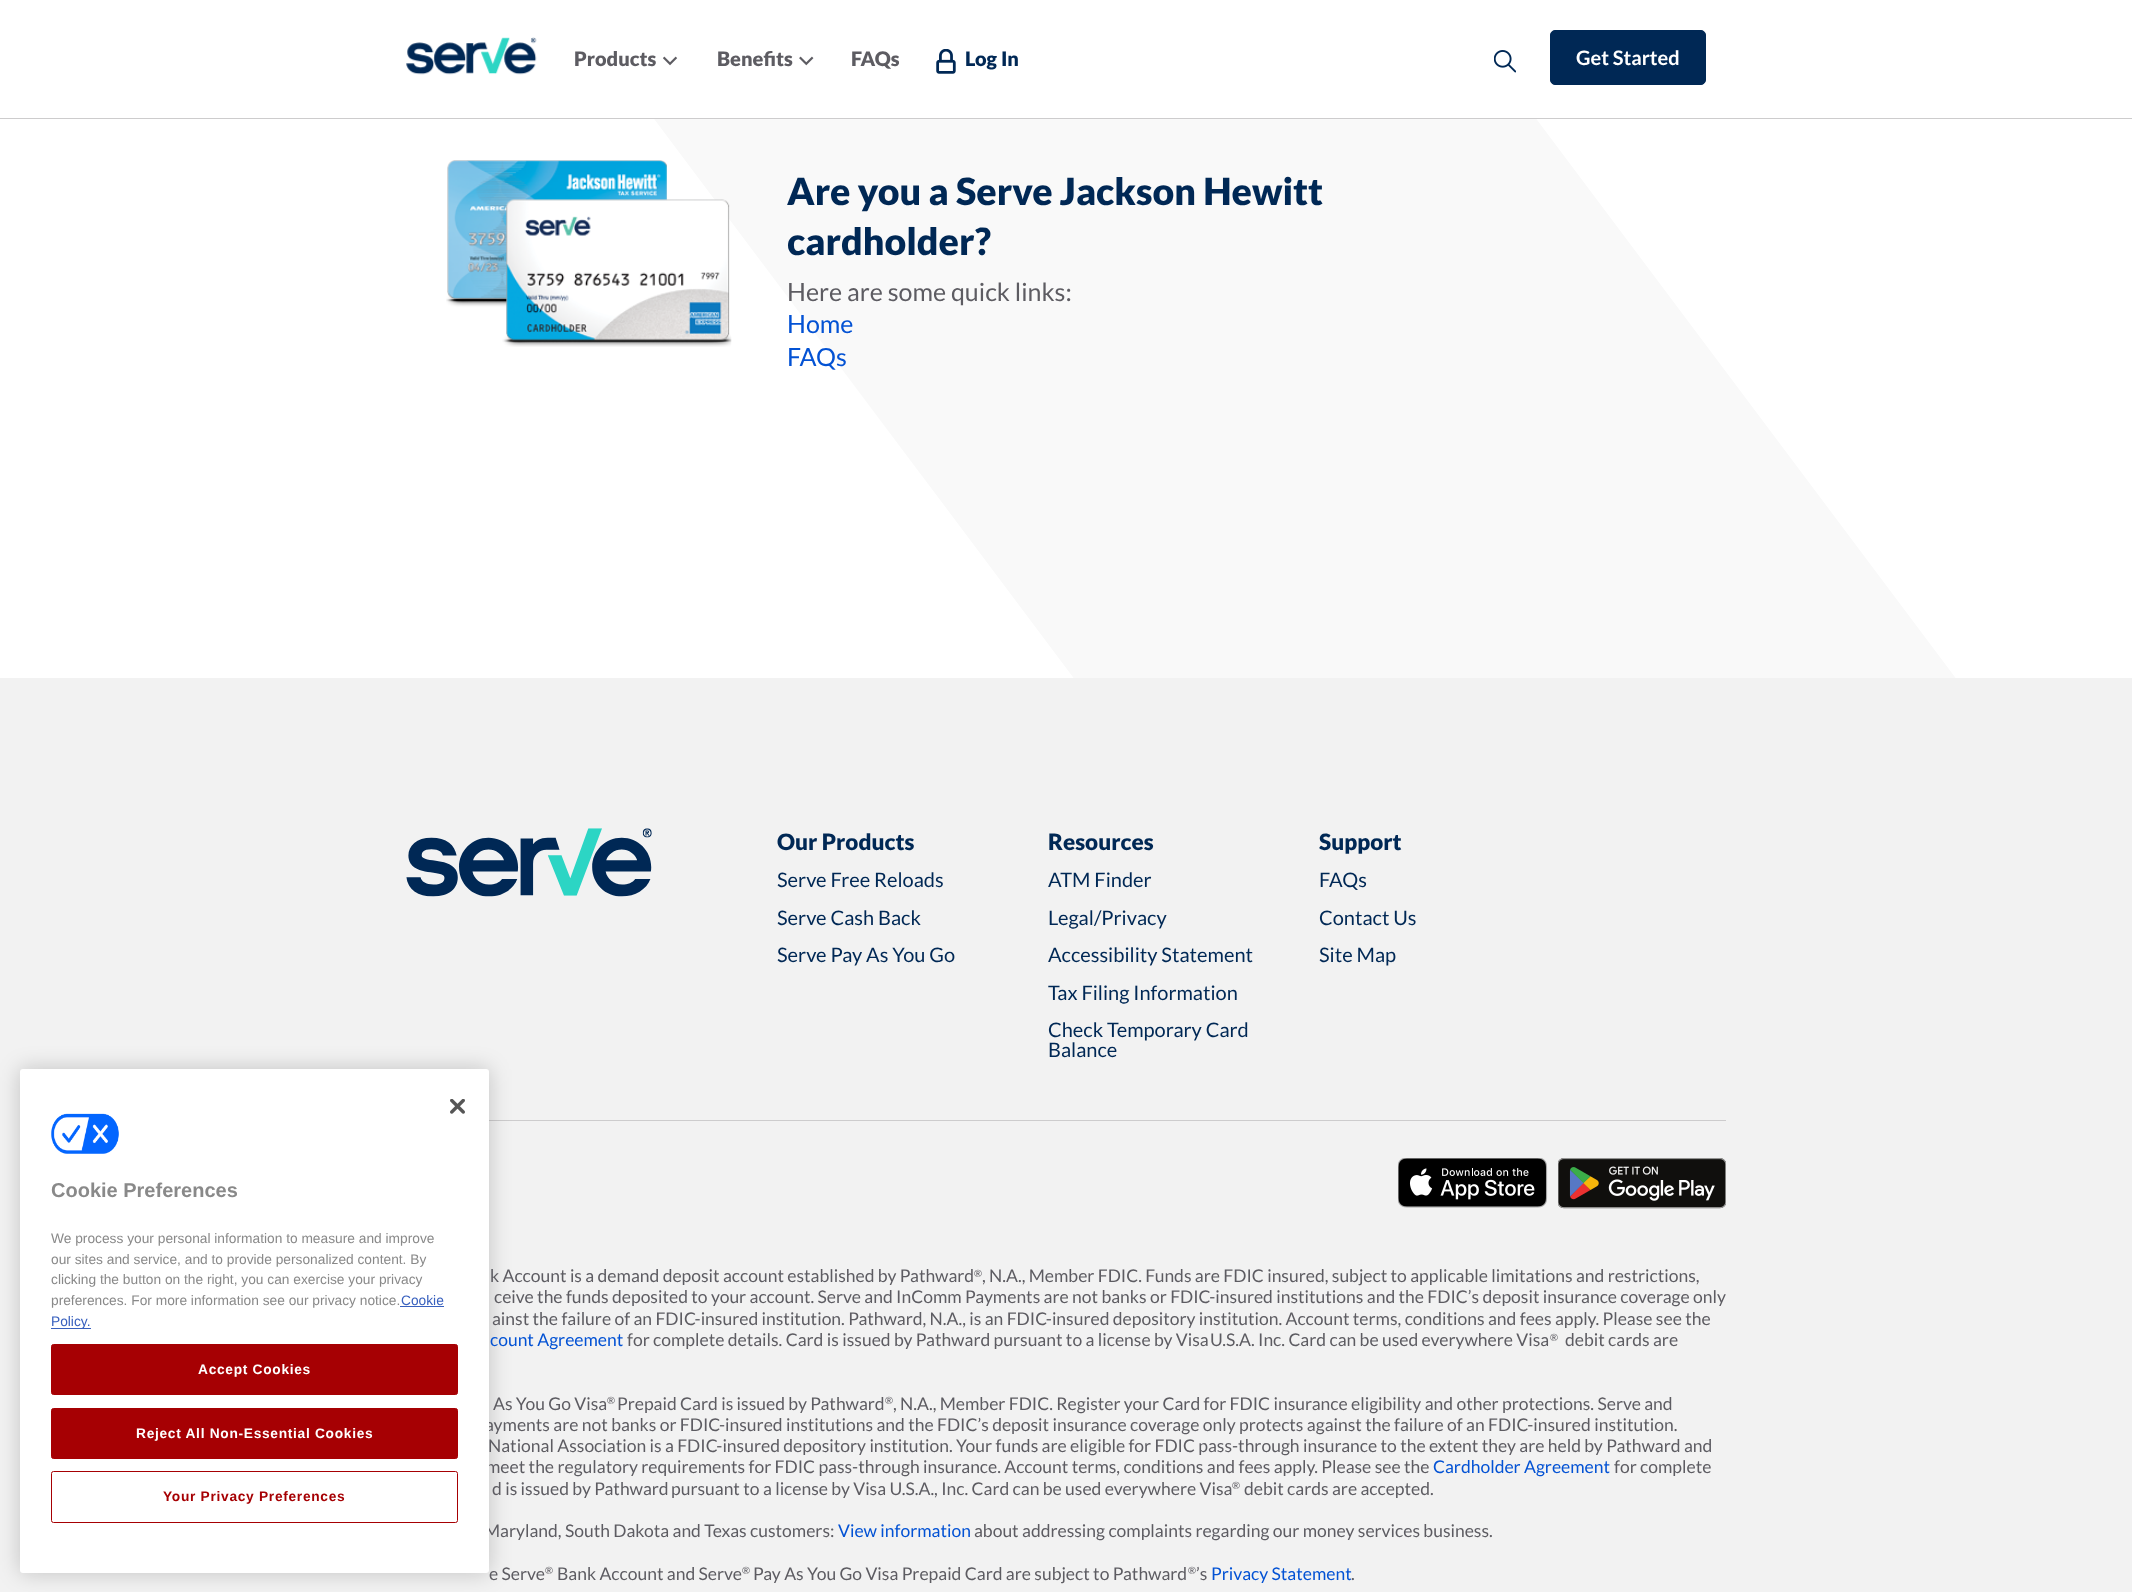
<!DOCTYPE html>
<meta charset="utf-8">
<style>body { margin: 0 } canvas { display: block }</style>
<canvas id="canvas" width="2132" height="1592"></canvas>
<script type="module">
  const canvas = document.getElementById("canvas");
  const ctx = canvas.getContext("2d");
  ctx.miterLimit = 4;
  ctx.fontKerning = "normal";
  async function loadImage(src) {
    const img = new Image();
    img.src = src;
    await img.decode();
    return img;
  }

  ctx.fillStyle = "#ffffff";
  ctx.fillRect(0, 0, 2132, 1592);
  ctx.fillStyle = "#f2f2f2";
  ctx.fillRect(0, 678, 2132, 914);
  ctx.fillStyle = "#cdcccd";
  ctx.fillRect(489, 1120, 1237, 1);
  ctx.fillStyle = "rgba(0, 0, 0, 0.2)";
  ctx.filter = "blur(11px)";
  ctx.beginPath();
  ctx.roundRect(20, 1069, 469, 504, 3);
  ctx.fill();
  ctx.filter = "none";
  ctx.font = "17.5px Lato";
  ctx.fillStyle = "#5d5c62";
  ctx.fillText("ayments are not banks or FDIC-insured institutions and the FDIC’s deposit insurance coverage only protects against the failure of an FDIC-insured institution.", 485, 1431);
  ctx.fillText("meet the regulatory requirements for FDIC pass-through insurance. Account terms, conditions and fees apply. Please see the", 486, 1473);
  ctx.fillText("Maryland, South Dakota and Texas customers:", 484, 1537);
  ctx.fillStyle = "#ffffff";
  ctx.beginPath();
  ctx.roundRect(20, 1069, 469, 504, 3);
  ctx.fill();
  ctx.drawImage(await loadImage("img1.png"), 450, 1099, 15, 15);
  ctx.drawImage(await loadImage("img2.png"), 51, 1113, 68, 41);
  ctx.font = "bold 20px Liberation Sans";
  ctx.fillStyle = "#898989";
  ctx.fillText("Cookie Preferences", 51, 1197);
  ctx.font = "13.75px Liberation Sans";
  ctx.fillText("We process your personal information to measure and improve", 51, 1243);
  ctx.fillText("our sites and service, and to provide personalized content. By", 51, 1264);
  ctx.fillText("clicking the button on the right, you can exercise your privacy", 51, 1284);
  ctx.fillText("preferences. For more information see our privacy notice.", 51, 1305);
  ctx.fillStyle = "#3860be";
  ctx.fillText("Cookie", 401, 1305);
  ctx.fillRect(400, 1306, 44, 1);
  ctx.fillRect(51, 1328, 40, 1);
  ctx.fillText("Policy.", 51, 1326);
  ctx.fillStyle = "#a60003";
  ctx.beginPath();
  ctx.roundRect(51.5, 1344.5, 406, 50, 2);
  ctx.fill();
  ctx.strokeStyle = "#a60003";
  ctx.stroke();
  ctx.letterSpacing = "0.7px";
  ctx.font = "bold 13.75px Liberation Sans";
  ctx.fillStyle = "#ffffff";
  ctx.fillText("Accept Cookies", 198, 1374);
  ctx.fillStyle = "#a60003";
  ctx.beginPath();
  ctx.roundRect(51.5, 1408.5, 406, 50, 2);
  ctx.fill();
  ctx.stroke();
  ctx.fillStyle = "#ffffff";
  ctx.fillText("Reject All Non-Essential Cookies", 136, 1438);
  ctx.beginPath();
  ctx.roundRect(51.5, 1471.5, 406, 51, 2);
  ctx.stroke();
  ctx.fillStyle = "#a60003";
  ctx.fillText("Your Privacy Preferences", 163, 1501);
  ctx.fillStyle = "#cdcccd";
  ctx.fillRect(0, 118, 2132, 1);
  ctx.drawImage(await loadImage("img3.png"), 406, 37, 131, 38);
  ctx.letterSpacing = "0px";
  ctx.font = "900 20px Lato";
  ctx.fillStyle = "#5d5c62";
  ctx.fillText("Products", 574, 66);
  ctx.drawImage(await loadImage("img4.png"), 663, 56, 15, 10);
  ctx.fillText("Benefits", 717, 66);
  ctx.drawImage(await loadImage("img5.png"), 799, 56, 15, 10);
  ctx.fillText("FAQs", 851, 66);
  ctx.drawImage(await loadImage("img6.png"), 936, 49, 20, 25);
  ctx.fillStyle = "#002855";
  ctx.fillText("Log In", 965, 66);
  ctx.drawImage(await loadImage("img7.png"), 1494, 50, 22, 23);
  ctx.beginPath();
  ctx.roundRect(1550.5, 30.5, 155, 54, 4.5);
  ctx.fill();
  ctx.strokeStyle = "#002855";
  ctx.stroke();
  ctx.font = "bold 20px Lato";
  ctx.fillStyle = "#ffffff";
  ctx.fillText("Get Started", 1576, 65);
  ctx.drawImage(await loadImage("img8.png"), 654, 119, 1302, 559);
  ctx.drawImage(await loadImage("img9.png"), 446, 160, 286, 187);
  ctx.font = "900 37.5px Lato";
  ctx.fillStyle = "#002855";
  ctx.fillText("Are you a Serve Jackson Hewitt", 787, 205);
  ctx.fillText("cardholder?", 787, 255);
  ctx.font = "25px Lato";
  ctx.fillStyle = "#5d5c62";
  ctx.fillText("Here are some quick links:", 787, 301);
  ctx.fillStyle = "#0352d4";
  ctx.fillText("Home", 787, 333);
  ctx.fillText("FAQs", 787, 366);
  ctx.drawImage(await loadImage("img10.png"), 406, 828, 246, 69);
  ctx.font = "900 22.5px Lato";
  ctx.fillStyle = "#002855";
  ctx.fillText("Our Products", 777, 850);
  ctx.font = "20px Lato";
  ctx.fillText("Serve Free Reloads", 777, 887);
  ctx.fillText("Serve Cash Back", 777, 925);
  ctx.fillText("Serve Pay As You Go", 777, 962);
  ctx.font = "900 22.5px Lato";
  ctx.fillText("Resources", 1048, 850);
  ctx.font = "20px Lato";
  ctx.fillText("ATM Finder", 1048, 887);
  ctx.fillText("Legal/Privacy", 1048, 925);
  ctx.fillText("Accessibility Statement", 1048, 962);
  ctx.fillText("Tax Filing Information", 1048, 1000);
  ctx.fillText("Check Temporary Card", 1048, 1037);
  ctx.fillText("Balance", 1048, 1057);
  ctx.font = "900 22.5px Lato";
  ctx.fillText("Support", 1319, 850);
  ctx.font = "20px Lato";
  ctx.fillText("FAQs", 1319, 887);
  ctx.fillText("Contact Us", 1319, 925);
  ctx.fillText("Site Map", 1319, 962);
  ctx.drawImage(await loadImage("img11.png"), 1398, 1158, 150, 50);
  ctx.drawImage(await loadImage("img12.png"), 1558, 1158, 168, 51);
  ctx.font = "17.5px Lato";
  ctx.fillStyle = "#5d5c62";
  ctx.fillText("k Account is a demand deposit account established by Pathward", 490, 1282);
  ctx.font = "10px Lato";
  ctx.fillText("®", 974, 1277);
  ctx.font = "17.5px Lato";
  ctx.fillText(", N.A., Member FDIC. Funds are FDIC insured, subject to applicable limitations and restrictions,", 982, 1282);
  ctx.fillText("ceive the funds deposited to your account. Serve and InComm Payments are not banks or FDIC-insured institutions and the FDIC’s deposit insurance coverage only", 494, 1303);
  ctx.fillText("ainst the failure of an FDIC-insured institution. Pathward, N.A., is an FDIC-insured depository institution. Account terms, conditions and fees apply. Please see the", 492, 1325);
  ctx.fillStyle = "#0352d4";
  ctx.fillText("count Agreement", 490, 1346);
  ctx.fillStyle = "#5d5c62";
  ctx.fillText("for complete details. Card is issued by Pathward pursuant to a license by Visa", 627, 1346);
  ctx.fillText("U.S.A. Inc. Card can be used everywhere Visa", 1210, 1346);
  ctx.font = "10px Lato";
  ctx.fillText("®", 1550, 1341);
  ctx.font = "17.5px Lato";
  ctx.fillText("debit cards are", 1565, 1346);
  ctx.fillText("As You Go Visa", 493, 1410);
  ctx.font = "10px Lato";
  ctx.fillText("®", 607, 1404);
  ctx.font = "17.5px Lato";
  ctx.fillText("Prepaid Card is issued by Pathward", 617, 1410);
  ctx.font = "10px Lato";
  ctx.fillText("®", 885, 1404);
  ctx.font = "17.5px Lato";
  ctx.fillText(", N.A., Member FDIC. Register your Card for FDIC insurance eligibility and other protections. Serve and", 893, 1410);
  ctx.fillText("National Association is a FDIC-insured depository institution. Your funds are eligible for FDIC pass-through insurance to the extent they are held by Pathward and", 488, 1452);
  ctx.fillStyle = "#0352d4";
  ctx.fillText("Cardholder Agreement", 1433, 1473);
  ctx.fillStyle = "#5d5c62";
  ctx.fillText("for complete", 1614, 1473);
  ctx.fillText("d is issued by Pathward", 492, 1495);
  ctx.fillText("pursuant to a license by Visa U.S.A., Inc. Card can be used everywhere Visa", 671, 1495);
  ctx.font = "10px Lato";
  ctx.fillText("®", 1232, 1489);
  ctx.font = "17.5px Lato";
  ctx.fillText("debit cards are accepted.", 1244, 1495);
  ctx.fillStyle = "#0352d4";
  ctx.fillText("View information", 838, 1537);
  ctx.fillStyle = "#5d5c62";
  ctx.fillText("about addressing complaints regarding our money services business.", 974, 1537);
  ctx.fillText("e Serve", 489, 1580);
  ctx.font = "10px Lato";
  ctx.fillText("®", 545, 1574);
  ctx.font = "17.5px Lato";
  ctx.fillText("Bank Account and Serve", 557, 1580);
  ctx.font = "10px Lato";
  ctx.fillText("®", 742, 1574);
  ctx.font = "17.5px Lato";
  ctx.fillText("Pay As You Go Visa Prepaid Card are subject to Pathward", 753, 1580);
  ctx.font = "10px Lato";
  ctx.fillText("®", 1188, 1574);
  ctx.font = "17.5px Lato";
  ctx.fillText("’s", 1196, 1580);
  ctx.fillStyle = "#0352d4";
  ctx.fillText("Privacy Statement", 1211, 1580);
  ctx.fillStyle = "#5d5c62";
  ctx.fillText(".", 1351, 1580);
</script>
